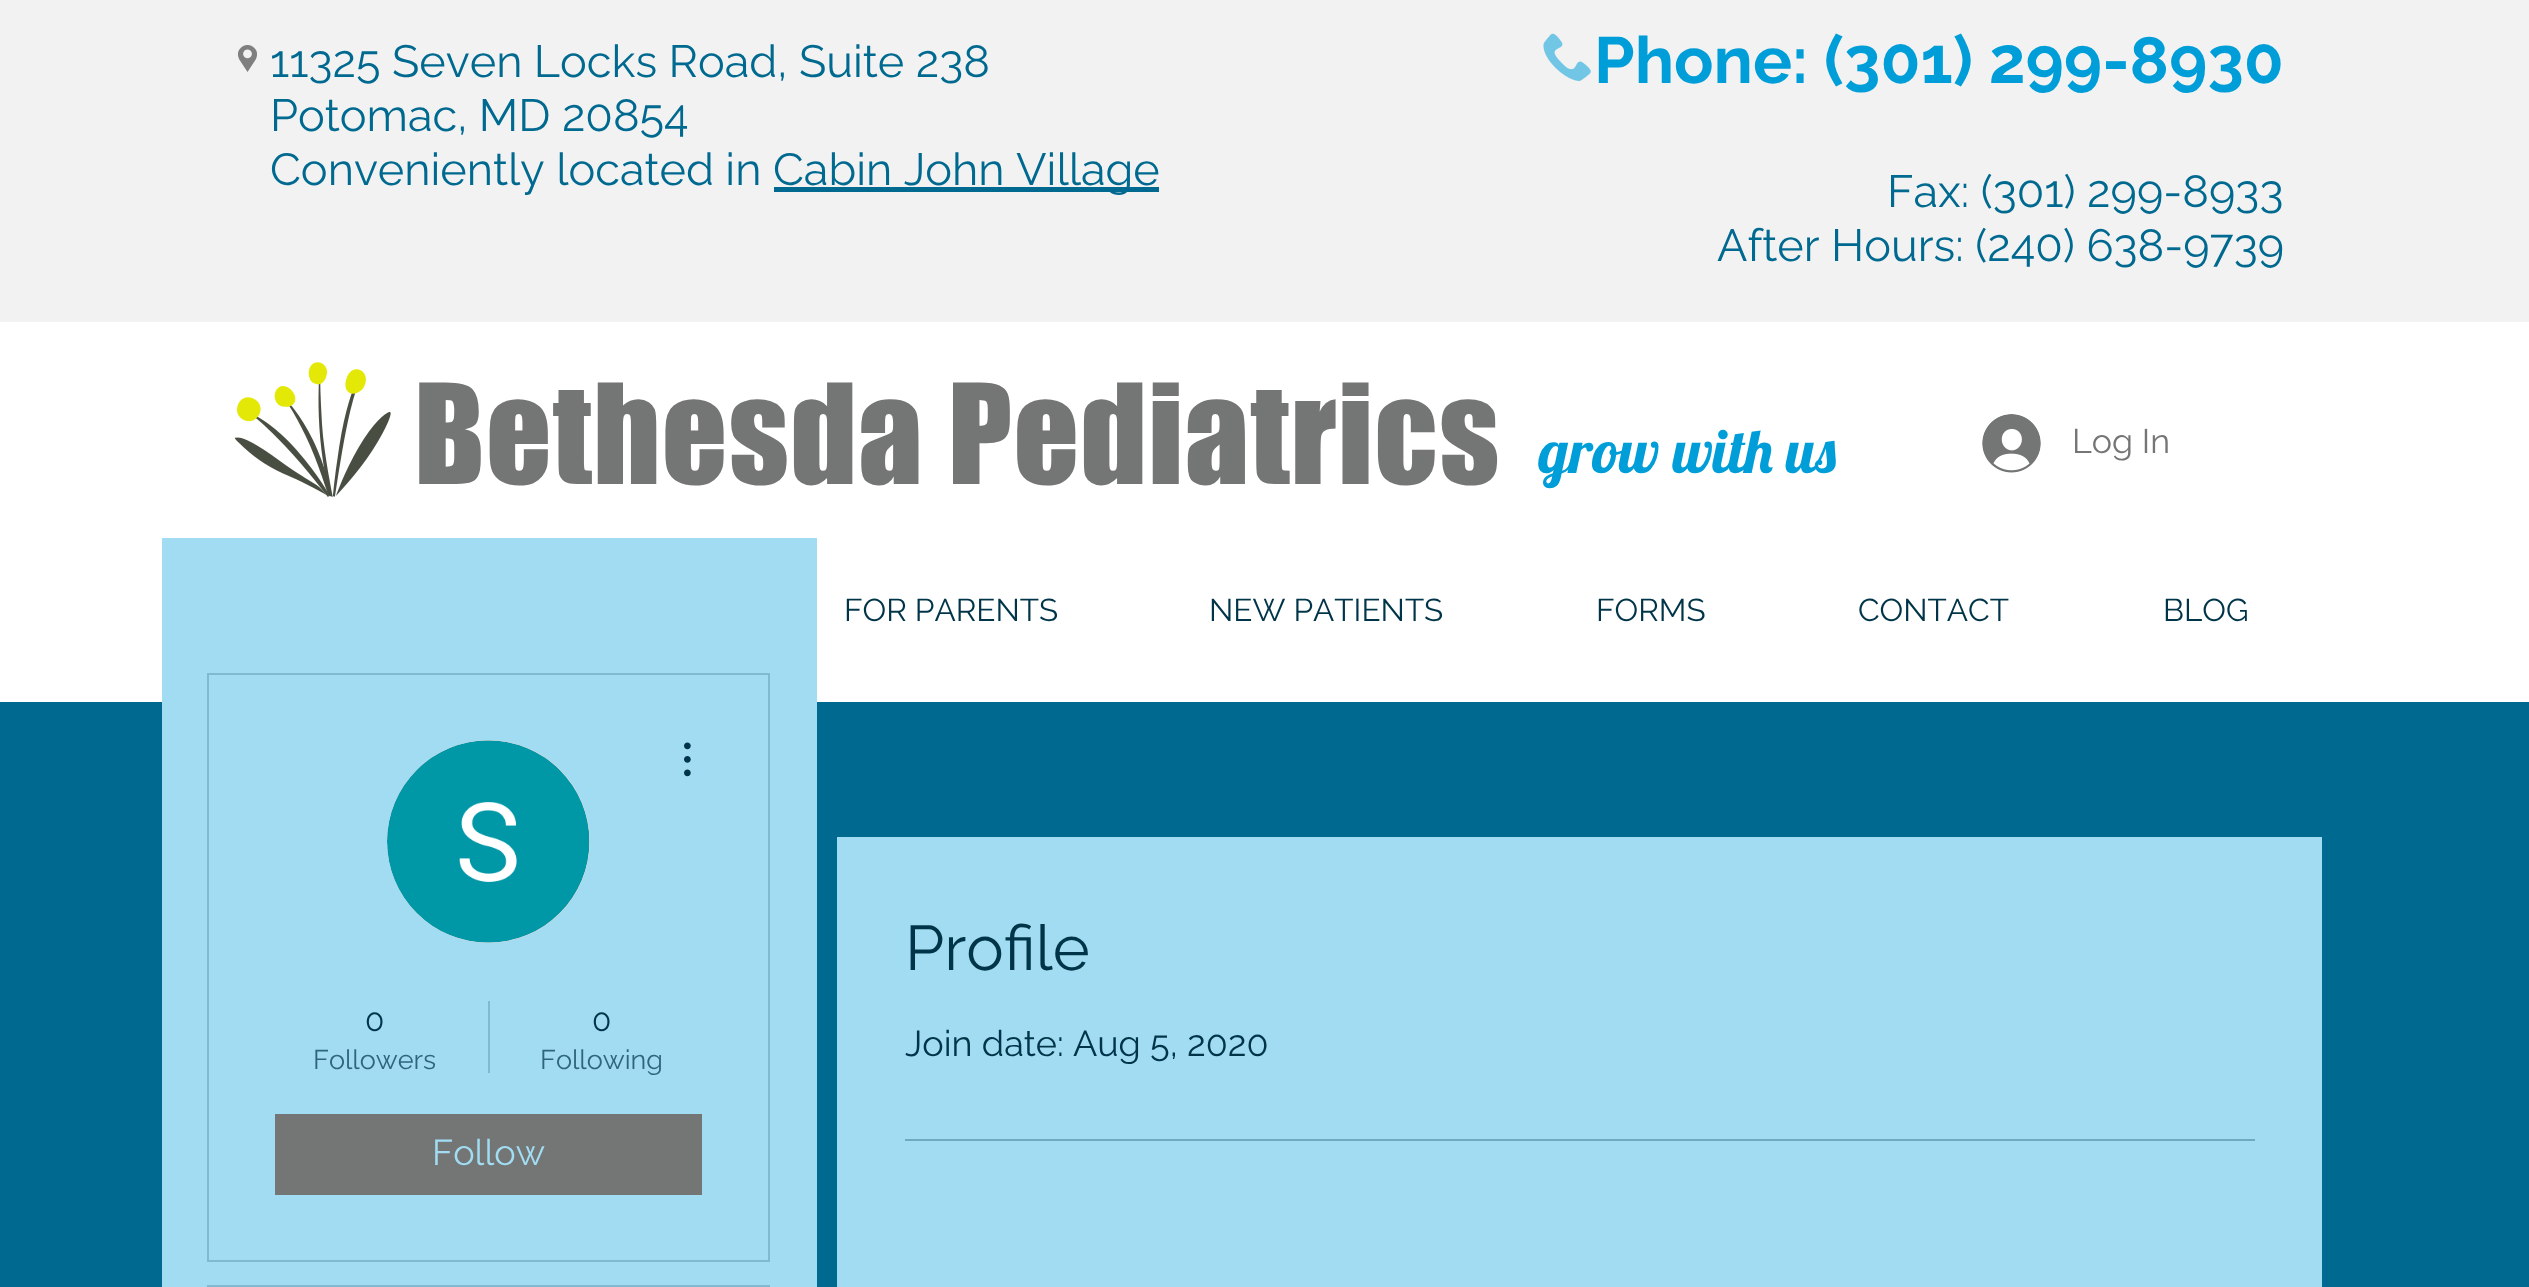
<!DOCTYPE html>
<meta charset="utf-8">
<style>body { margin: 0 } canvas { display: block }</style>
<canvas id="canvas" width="2529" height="1287"></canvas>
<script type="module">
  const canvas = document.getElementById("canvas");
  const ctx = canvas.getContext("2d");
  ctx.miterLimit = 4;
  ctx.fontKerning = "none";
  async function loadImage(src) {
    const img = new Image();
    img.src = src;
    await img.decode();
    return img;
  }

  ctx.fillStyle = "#006990";
  ctx.fillRect(0, 0, 2529, 1287);
  ctx.fillStyle = "#f2f2f2";
  ctx.fillRect(0, 0, 2529, 322);
  ctx.drawImage(await loadImage("img1.png"), 237, 45, 20, 27);
  ctx.font = "45px Raleway";
  ctx.fillStyle = "#006990";
  ctx.fillText("11325 Seven Locks Road, Suite 238", 270, 77);
  ctx.fillText("Potomac, MD 20854", 270, 131);
  ctx.fillText("Conveniently located in", 270, 185);
  ctx.fillRect(774, 187, 385, 5);
  ctx.fillText("Cabin John Village", 773, 185);
  ctx.drawImage(await loadImage("img2.png"), 1543, 33, 48, 48);
  ctx.font = "bold 65.25px Raleway";
  ctx.fillStyle = "#009ed8";
  ctx.fillText("Phone: (301) 299-8930", 1594, 83);
  ctx.font = "45px Raleway";
  ctx.fillStyle = "#006990";
  ctx.fillText("Fax: (301) 299-8933", 1887, 207);
  ctx.fillText("After Hours: (240) 638-9739", 1717, 261);
  ctx.fillStyle = "#ffffff";
  ctx.fillRect(0, 322, 2529, 380);
  ctx.drawImage(await loadImage("img3.png"), 234, 362, 157, 136);
  ctx.letterSpacing = "1.25px";
  ctx.font = "128.25px 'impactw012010'";
  ctx.fillStyle = "#747575";
  ctx.fillText("Bethesda Pediatrics", 414, 484);
  ctx.letterSpacing = "0px";
  ctx.font = "60.75px Lobster";
  ctx.fillStyle = "#009ed8";
  ctx.fillText("grow with us", 1539, 473);
  ctx.drawImage(await loadImage("img4.png"), 1982, 414, 59, 59);
  ctx.font = "34px Raleway";
  ctx.fillStyle = "#747575";
  ctx.fillText("Log In", 2072, 453);
  ctx.font = "31.5px Raleway";
  ctx.fillStyle = "#003448";
  ctx.fillText("FOR PARENTS", 844, 621);
  ctx.fillText("NEW PATIENTS", 1209, 621);
  ctx.fillText("FORMS", 1596, 621);
  ctx.fillText("CONTACT", 1858, 621);
  ctx.fillText("BLOG", 2163, 621);
  ctx.fillStyle = "#a1dcf2";
  ctx.fillRect(837, 837, 1485, 450);
  ctx.font = "63px Raleway";
  ctx.fillStyle = "#003448";
  ctx.fillText("Profile", 905, 970);
  ctx.font = "36px Raleway";
  ctx.fillText("Join date: Aug 5, 2020", 905, 1056);
  ctx.fillStyle = "#71aabf";
  ctx.fillRect(905, 1139, 1350, 2);
  ctx.fillStyle = "#a1dcf2";
  ctx.fillRect(162, 538, 655, 749);
  ctx.strokeStyle = "#81bad0";
  ctx.lineWidth = 2;
  ctx.strokeRect(208, 674, 561, 587);
  ctx.fillStyle = "#d8d8d8";
  ctx.beginPath();
  ctx.arc(488.5, 841.5, 101.5, 0, Math.PI * 2);
  ctx.fill();
  ctx.drawImage(await loadImage("img5.png"), 387, 740, 203, 203);
  ctx.drawImage(await loadImage("img6.png"), 684, 742, 7, 35);
  ctx.font = "31.5px Raleway";
  ctx.fillStyle = "#003448";
  ctx.fillText("0", 365, 1031);
  ctx.font = "27px Raleway";
  ctx.fillStyle = "#30667b";
  ctx.fillText("Followers", 313, 1069);
  ctx.fillStyle = "#81bad0";
  ctx.fillRect(488, 1001, 2, 72);
  ctx.font = "31.5px Raleway";
  ctx.fillStyle = "#003448";
  ctx.fillText("0", 592, 1031);
  ctx.font = "27px Raleway";
  ctx.fillStyle = "#30667b";
  ctx.fillText("Following", 540, 1069);
  ctx.fillStyle = "#747575";
  ctx.fillRect(275, 1114, 427, 81);
  ctx.font = "36px Raleway";
  ctx.fillStyle = "#a1dcf2";
  ctx.fillText("Follow", 432, 1165);
  ctx.strokeRect(208, 1286, 561, 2);
</script>
